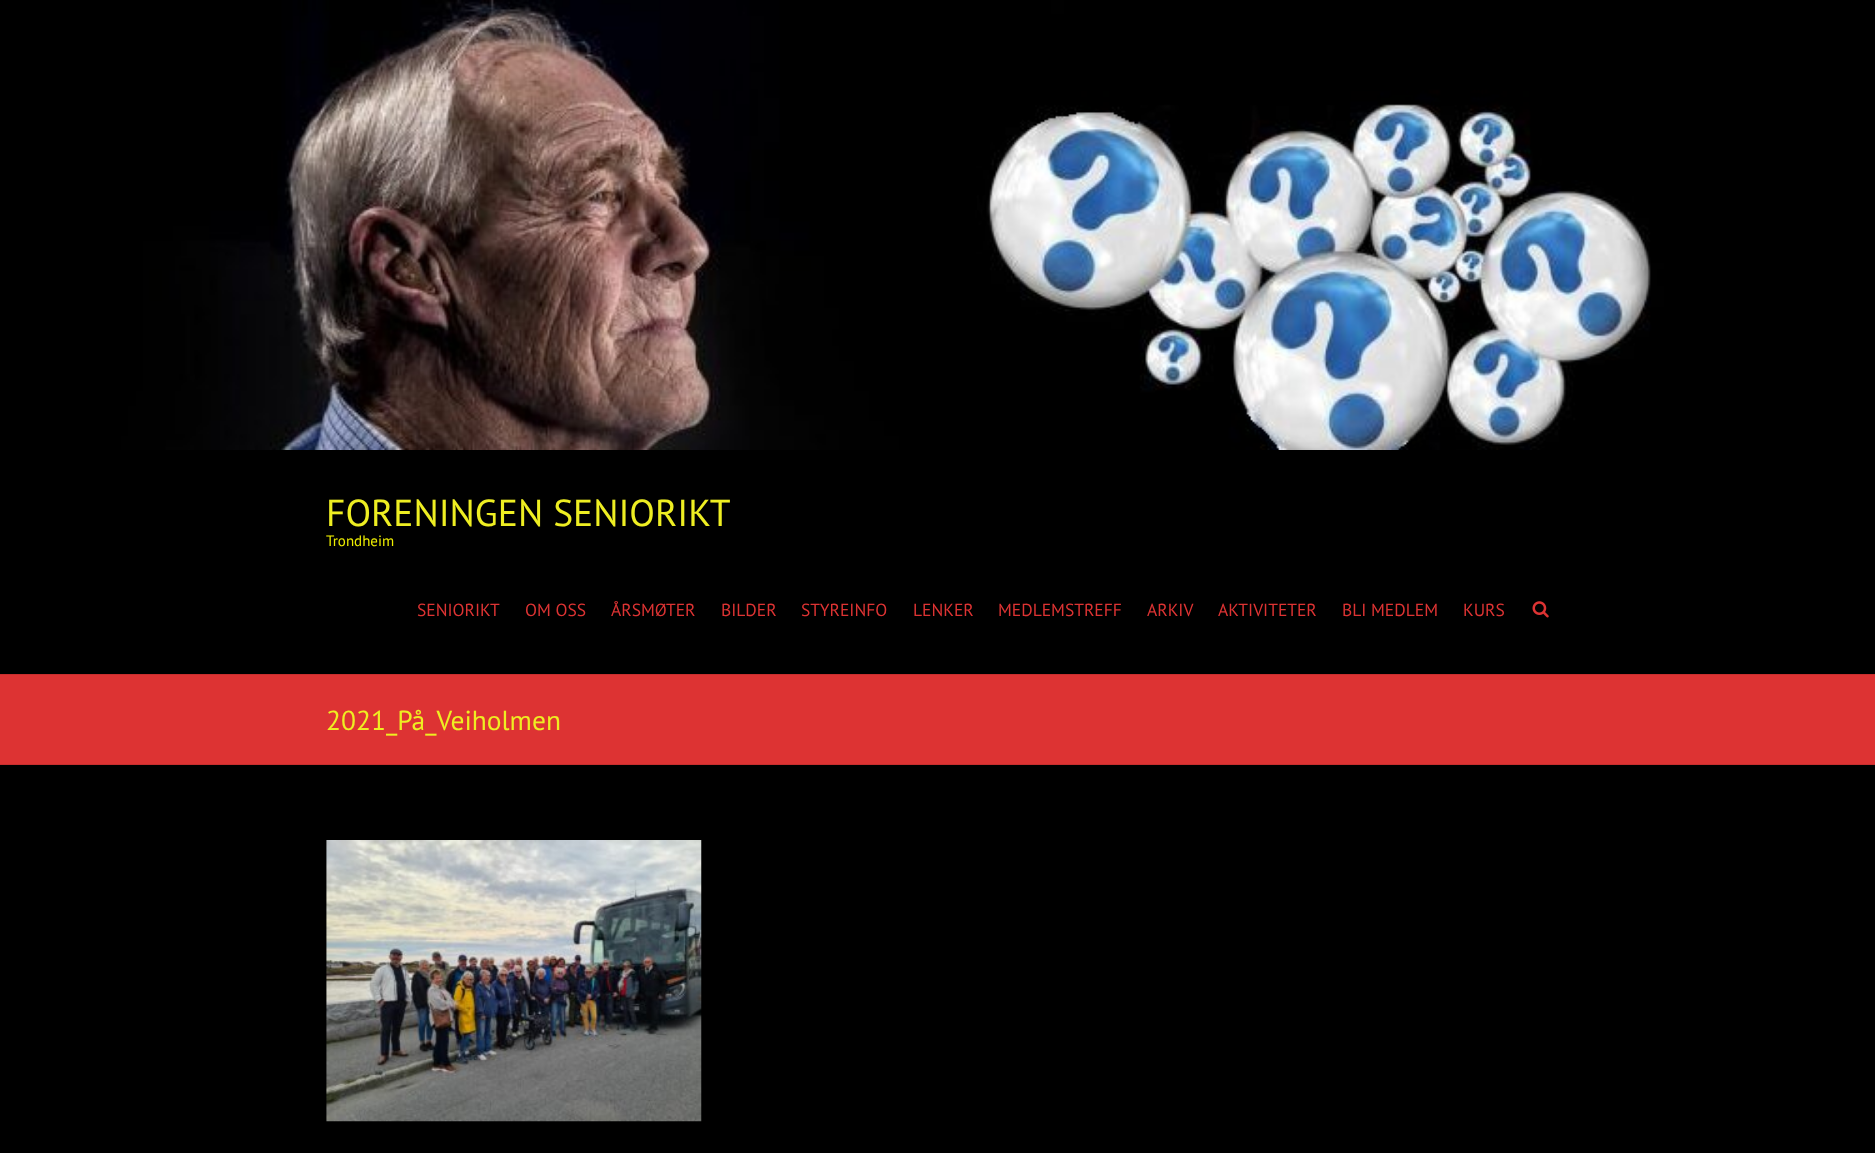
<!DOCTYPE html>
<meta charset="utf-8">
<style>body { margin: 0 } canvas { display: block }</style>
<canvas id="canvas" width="1875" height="1153"></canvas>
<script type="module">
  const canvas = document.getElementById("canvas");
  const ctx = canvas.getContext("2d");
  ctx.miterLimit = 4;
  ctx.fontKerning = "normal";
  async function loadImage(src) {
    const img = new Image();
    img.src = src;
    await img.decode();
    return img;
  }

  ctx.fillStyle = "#000000";
  ctx.fillRect(0, 0, 1875, 1153);
  ctx.drawImage(await loadImage("img1.png"), 0, 0, 1875, 450);
  ctx.font = "37.5px PT Sans";
  ctx.fillStyle = "#eeee22";
  ctx.fillText("FORENINGEN SENIORIKT", 326, 526);
  ctx.font = "15px PT Sans";
  ctx.fillStyle = "#eded00";
  ctx.fillText("Trondheim", 326, 546);
  ctx.font = "17.5px PT Sans";
  ctx.fillStyle = "#dd3333";
  ctx.fillText("SENIORIKT", 417, 616);
  ctx.fillText("OM OSS", 525, 616);
  ctx.fillText("ÅRSMØTER", 611, 616);
  ctx.fillText("BILDER", 721, 616);
  ctx.fillText("STYREINFO", 801, 616);
  ctx.fillText("LENKER", 913, 616);
  ctx.fillText("MEDLEMSTREFF", 998, 616);
  ctx.fillText("ARKIV", 1147, 616);
  ctx.fillText("AKTIVITETER", 1218, 616);
  ctx.fillText("BLI MEDLEM", 1342, 616);
  ctx.fillText("KURS", 1463, 616);
  ctx.drawImage(await loadImage("img2.png"), 1532, 601, 17, 17);
  ctx.fillRect(0, 675, 1875, 89);
  ctx.fillStyle = "#c72e2e";
  ctx.fillRect(0, 674, 1875, 1);
  ctx.fillRect(0, 764, 1875, 1);
  ctx.font = "27.5px PT Sans";
  ctx.fillStyle = "#eeee22";
  ctx.fillText("2021_På_Veiholmen", 326, 730);
  ctx.drawImage(await loadImage("img3.png"), 326, 840, 376, 282);
</script>
